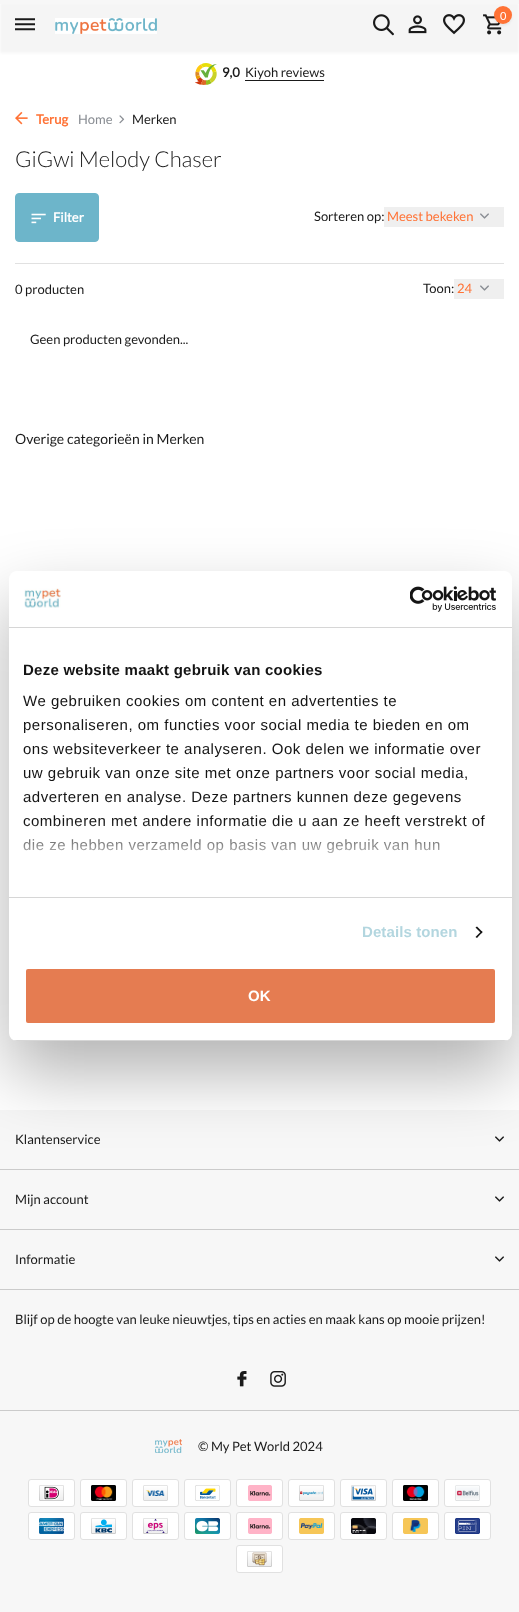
<!DOCTYPE html>
<meta charset="utf-8">
<style>body { margin: 0 } canvas { display: block }</style>
<canvas id="canvas" width="519" height="1612"></canvas>
<script type="module">
  const canvas = document.getElementById("canvas");
  const ctx = canvas.getContext("2d");
  ctx.miterLimit = 4;
  ctx.fontKerning = "normal";
  async function loadImage(src) {
    const img = new Image();
    img.src = src;
    await img.decode();
    return img;
  }
  let gradient;

  ctx.fillStyle = "#ffffff";
  ctx.fillRect(0, 0, 519, 1612);
  ctx.fillStyle = "rgba(0, 0, 0, 0.04)";
  ctx.filter = "blur(1.5px)";
  ctx.beginPath();
  ctx.rect(0, 3, 519, 50);
  ctx.fill();
  ctx.filter = "none";
  ctx.fillStyle = "#f7f7f7";
  ctx.fillRect(0, 0, 519, 4);
  ctx.drawImage(await loadImage("img1.png"), 15, 18, 20, 13);
  ctx.drawImage(await loadImage("img2.png"), 55, 18, 102, 16);
  ctx.drawImage(await loadImage("img3.png"), 373, 14, 21, 22);
  ctx.drawImage(await loadImage("img4.png"), 408, 15, 19, 19);
  ctx.drawImage(await loadImage("img5.png"), 443, 14, 22, 21);
  ctx.drawImage(await loadImage("img6.png"), 483, 14, 19, 21);
  ctx.fillStyle = "rgba(0, 0, 0, 0.06)";
  ctx.filter = "blur(1px)";
  ctx.beginPath();
  ctx.roundRect(494, 8, 18, 18, 9);
  ctx.fill();
  ctx.filter = "none";
  ctx.fillStyle = "#ff7235";
  ctx.beginPath();
  ctx.arc(503, 15, 9, 0, Math.PI * 2);
  ctx.fill();
  ctx.font = "11px Lato";
  ctx.fillStyle = "#ffffff";
  ctx.fillText("0", 500, 20);
  ctx.drawImage(await loadImage("img7.png"), 195, 63, 22, 22);
  ctx.font = "bold 13px Lato";
  ctx.fillStyle = "#1a1a1a";
  ctx.fillText("9,0", 222, 77);
  ctx.font = "13px Lato";
  ctx.fillText("Kiyoh reviews", 245, 77);
  ctx.fillRect(245, 80, 79, 1);
  ctx.drawImage(await loadImage("img8.png"), 15, 111, 13, 14);
  ctx.font = "bold 13px Lato";
  ctx.fillStyle = "#ff7235";
  ctx.fillText("Terug", 36, 124);
  ctx.font = "13px Lato";
  ctx.fillStyle = "#898d93";
  ctx.fillText("Home", 78, 124);
  ctx.drawImage(await loadImage("img9.png"), 119, 115, 6, 9);
  ctx.fillStyle = "#1a1a1a";
  ctx.fillText("Merken", 132, 124);
  ctx.font = "300 22px Lato";
  ctx.fillText("GiGwi Melody Chaser", 15, 167);
  ctx.fillStyle = "#6db5ca";
  ctx.beginPath();
  ctx.roundRect(15.5, 193.5, 83, 48, 3.5);
  ctx.fill();
  ctx.strokeStyle = "#6db5ca";
  ctx.stroke();
  ctx.drawImage(await loadImage("img10.png"), 31, 213, 15, 11);
  ctx.font = "bold 13px Lato";
  ctx.fillStyle = "#ffffff";
  ctx.fillText("Filter", 53, 222);
  ctx.font = "13px Lato";
  ctx.fillStyle = "#1a1a1a";
  ctx.fillText("Sorteren op:", 314, 221);
  ctx.fillStyle = "#efefef";
  ctx.fillRect(384, 207, 120, 20);
  ctx.fillStyle = "#ff7235";
  ctx.fillText("Meest bekeken", 387, 221);
  ctx.drawImage(await loadImage("img11.png"), 480, 213, 9, 6);
  ctx.fillStyle = "#1a1a1a";
  ctx.fillText("Toon:", 423, 293);
  ctx.fillStyle = "#efefef";
  ctx.fillRect(454, 279, 50, 20);
  ctx.fillStyle = "#ff7235";
  ctx.fillText("24", 457, 293);
  ctx.drawImage(await loadImage("img11.png"), 480, 285, 9, 6);
  ctx.fillStyle = "#e1e1e1";
  ctx.fillRect(15, 263, 489, 1);
  ctx.fillStyle = "#1a1a1a";
  ctx.fillText("0 producten", 15, 294);
  ctx.fillText("Geen producten gevonden...", 30, 344);
  ctx.font = "14px Lato";
  ctx.fillText("Overige categorieën in Merken", 15, 444);
  ctx.fillStyle = "#f7f7f7";
  ctx.fillRect(0, 1110, 519, 502);
  ctx.drawImage(await loadImage("img14.png"), 495, 1136, 9, 6);
  ctx.fillStyle = "#cbcbcb";
  ctx.fillRect(0, 1169, 519, 1);
  ctx.fillStyle = "rgba(0, 0, 0, 0.3)";
  ctx.filter = "blur(34px)";
  ctx.beginPath();
  ctx.roundRect(9, 603, 503, 470, 8);
  ctx.fill();
  ctx.filter = "none";
  ctx.fillStyle = "#ffffff";
  ctx.beginPath();
  ctx.roundRect(9, 571, 503, 470, 8);
  ctx.fill();
  ctx.fillStyle = "#d6d6d6";
  ctx.fillRect(9, 627, 503, 1);
  ctx.drawImage(await loadImage("img12.png"), 24, 588, 37, 20);
  ctx.drawImage(await loadImage("img13.png"), 410, 586, 86, 26);
  ctx.fillRect(9, 897, 503, 1);
  ctx.letterSpacing = "0.25px";
  ctx.font = "bold 15px Liberation Sans";
  ctx.fillStyle = "#141414";
  ctx.fillText("Deze website maakt gebruik van cookies", 23, 675);
  ctx.letterSpacing = "0.5px";
  ctx.font = "15px Liberation Sans";
  ctx.fillText("We gebruiken cookies om content en advertenties te", 23, 706);
  ctx.fillText("personaliseren, om functies voor social media te bieden en om", 23, 730);
  ctx.fillText("ons websiteverkeer te analyseren. Ook delen we informatie over", 23, 754);
  ctx.fillText("uw gebruik van onze site met onze partners voor social media,", 23, 778);
  ctx.fillText("adverteren en analyse. Deze partners kunnen deze gegevens", 23, 802);
  ctx.fillText("combineren met andere informatie die u aan ze heeft verstrekt of", 23, 826);
  ctx.fillText("die ze hebben verzameld op basis van uw gebruik van hun", 23, 850);
  gradient = ctx.createLinearGradient(254, 897, 254, 822);
  gradient.addColorStop(0, "#ffffff");
  gradient.addColorStop(0.5, "rgba(255, 255, 255, 0.8)");
  gradient.addColorStop(1, "rgba(255, 255, 255, 0)");
  ctx.fillStyle = gradient;
  ctx.fillRect(23, 823, 461, 31);
  ctx.letterSpacing = "0.1px";
  ctx.font = "bold 15px Liberation Sans";
  ctx.fillStyle = "#b3d6df";
  ctx.fillText("Details tonen", 362, 937);
  ctx.fillStyle = "#141414";
  ctx.beginPath();
  ctx.moveTo(477, 926.5);
  ctx.lineTo(482.5, 932);
  ctx.lineTo(481.5, 933.5);
  ctx.lineTo(475.5, 927.5);
  ctx.closePath();
  ctx.fill();
  ctx.beginPath();
  ctx.moveTo(481.5, 931);
  ctx.lineTo(482.5, 932);
  ctx.lineTo(477, 938);
  ctx.lineTo(475.5, 937);
  ctx.closePath();
  ctx.fill();
  ctx.save();
  ctx.beginPath();
  ctx.roundRect(9, 571, 503, 470, 8);
  ctx.clip();
  ctx.fillStyle = "#d6d6d6";
  ctx.fillRect(9, 1040, 503, 1);
  ctx.restore();
  ctx.fillStyle = "#e57c51";
  ctx.beginPath();
  ctx.roundRect(25, 968, 471, 56, 3);
  ctx.fill();
  ctx.strokeStyle = "#ffffff";
  ctx.lineWidth = 2;
  ctx.stroke();
  ctx.letterSpacing = "0px";
  ctx.fillStyle = "#ffffff";
  ctx.fillText("OK", 248, 1001);
  ctx.font = "13px Lato";
  ctx.fillStyle = "#1a1a1a";
  ctx.fillText("Klantenservice", 15, 1144);
  ctx.fillText("Mijn account", 15, 1204);
  ctx.drawImage(await loadImage("img14.png"), 495, 1196, 9, 6);
  ctx.fillStyle = "#cbcbcb";
  ctx.fillRect(0, 1229, 519, 1);
  ctx.fillStyle = "#1a1a1a";
  ctx.fillText("Informatie", 15, 1264);
  ctx.drawImage(await loadImage("img14.png"), 495, 1256, 9, 6);
  ctx.fillStyle = "#cbcbcb";
  ctx.fillRect(0, 1289, 519, 1);
  ctx.fillStyle = "#1a1a1a";
  ctx.fillText("Blijf op de hoogte van leuke nieuwtjes, tips en acties en maak kans op mooie prijzen!", 15, 1324);
  ctx.drawImage(await loadImage("img15.png"), 237, 1371, 10, 16);
  ctx.drawImage(await loadImage("img16.png"), 270, 1371, 16, 16);
  ctx.fillStyle = "#cbcbcb";
  ctx.fillRect(0, 1410, 519, 1);
  ctx.drawImage(await loadImage("img17.png"), 155, 1439, 27, 14);
  ctx.fillStyle = "#1a1a1a";
  ctx.fillText("© My Pet World 2024", 198, 1451);
  ctx.fillStyle = "#ffffff";
  ctx.beginPath();
  ctx.roundRect(28.5, 1479.5, 46, 27, 2.5);
  ctx.fill();
  ctx.strokeStyle = "#e1e1e1";
  ctx.lineWidth = 1;
  ctx.stroke();
  ctx.drawImage(await loadImage("img18.png"), 39, 1485, 25, 16);
  ctx.beginPath();
  ctx.roundRect(80.5, 1479.5, 46, 27, 2.5);
  ctx.fill();
  ctx.stroke();
  ctx.drawImage(await loadImage("img19.png"), 91, 1485, 25, 16);
  ctx.beginPath();
  ctx.roundRect(132.5, 1479.5, 46, 27, 2.5);
  ctx.fill();
  ctx.stroke();
  ctx.drawImage(await loadImage("img20.png"), 143, 1485, 25, 16);
  ctx.beginPath();
  ctx.roundRect(184.5, 1479.5, 46, 27, 2.5);
  ctx.fill();
  ctx.stroke();
  ctx.drawImage(await loadImage("img21.png"), 195, 1485, 25, 16);
  ctx.beginPath();
  ctx.roundRect(236.5, 1479.5, 46, 27, 2.5);
  ctx.fill();
  ctx.stroke();
  ctx.drawImage(await loadImage("img22.png"), 248, 1485, 24, 16);
  ctx.beginPath();
  ctx.roundRect(288.5, 1479.5, 46, 27, 2.5);
  ctx.fill();
  ctx.stroke();
  ctx.drawImage(await loadImage("img23.png"), 299, 1485, 25, 16);
  ctx.beginPath();
  ctx.roundRect(340.5, 1479.5, 46, 27, 2.5);
  ctx.fill();
  ctx.stroke();
  ctx.drawImage(await loadImage("img24.png"), 351, 1485, 25, 16);
  ctx.beginPath();
  ctx.roundRect(392.5, 1479.5, 46, 27, 2.5);
  ctx.fill();
  ctx.stroke();
  ctx.drawImage(await loadImage("img25.png"), 403, 1485, 25, 16);
  ctx.beginPath();
  ctx.roundRect(444.5, 1479.5, 46, 27, 2.5);
  ctx.fill();
  ctx.stroke();
  ctx.drawImage(await loadImage("img26.png"), 455, 1485, 25, 16);
  ctx.beginPath();
  ctx.roundRect(28.5, 1512.5, 46, 27, 2.5);
  ctx.fill();
  ctx.stroke();
  ctx.drawImage(await loadImage("img27.png"), 39, 1518, 25, 16);
  ctx.beginPath();
  ctx.roundRect(80.5, 1512.5, 46, 27, 2.5);
  ctx.fill();
  ctx.stroke();
  ctx.drawImage(await loadImage("img28.png"), 91, 1518, 25, 16);
  ctx.beginPath();
  ctx.roundRect(132.5, 1512.5, 46, 27, 2.5);
  ctx.fill();
  ctx.stroke();
  ctx.drawImage(await loadImage("img29.png"), 143, 1518, 25, 16);
  ctx.beginPath();
  ctx.roundRect(184.5, 1512.5, 46, 27, 2.5);
  ctx.fill();
  ctx.stroke();
  ctx.drawImage(await loadImage("img30.png"), 195, 1518, 25, 16);
  ctx.beginPath();
  ctx.roundRect(236.5, 1512.5, 46, 27, 2.5);
  ctx.fill();
  ctx.stroke();
  ctx.drawImage(await loadImage("img22.png"), 248, 1518, 24, 16);
  ctx.beginPath();
  ctx.roundRect(288.5, 1512.5, 46, 27, 2.5);
  ctx.fill();
  ctx.stroke();
  ctx.drawImage(await loadImage("img31.png"), 299, 1518, 25, 16);
  ctx.beginPath();
  ctx.roundRect(340.5, 1512.5, 46, 27, 2.5);
  ctx.fill();
  ctx.stroke();
  ctx.drawImage(await loadImage("img32.png"), 351, 1518, 25, 16);
  ctx.beginPath();
  ctx.roundRect(392.5, 1512.5, 46, 27, 2.5);
  ctx.fill();
  ctx.stroke();
  ctx.drawImage(await loadImage("img33.png"), 403, 1518, 25, 16);
  ctx.beginPath();
  ctx.roundRect(444.5, 1512.5, 46, 27, 2.5);
  ctx.fill();
  ctx.stroke();
  ctx.drawImage(await loadImage("img34.png"), 455, 1518, 25, 16);
  ctx.beginPath();
  ctx.roundRect(236.5, 1545.5, 46, 27, 2.5);
  ctx.fill();
  ctx.stroke();
  ctx.drawImage(await loadImage("img35.png"), 247, 1551, 25, 16);
</script>
